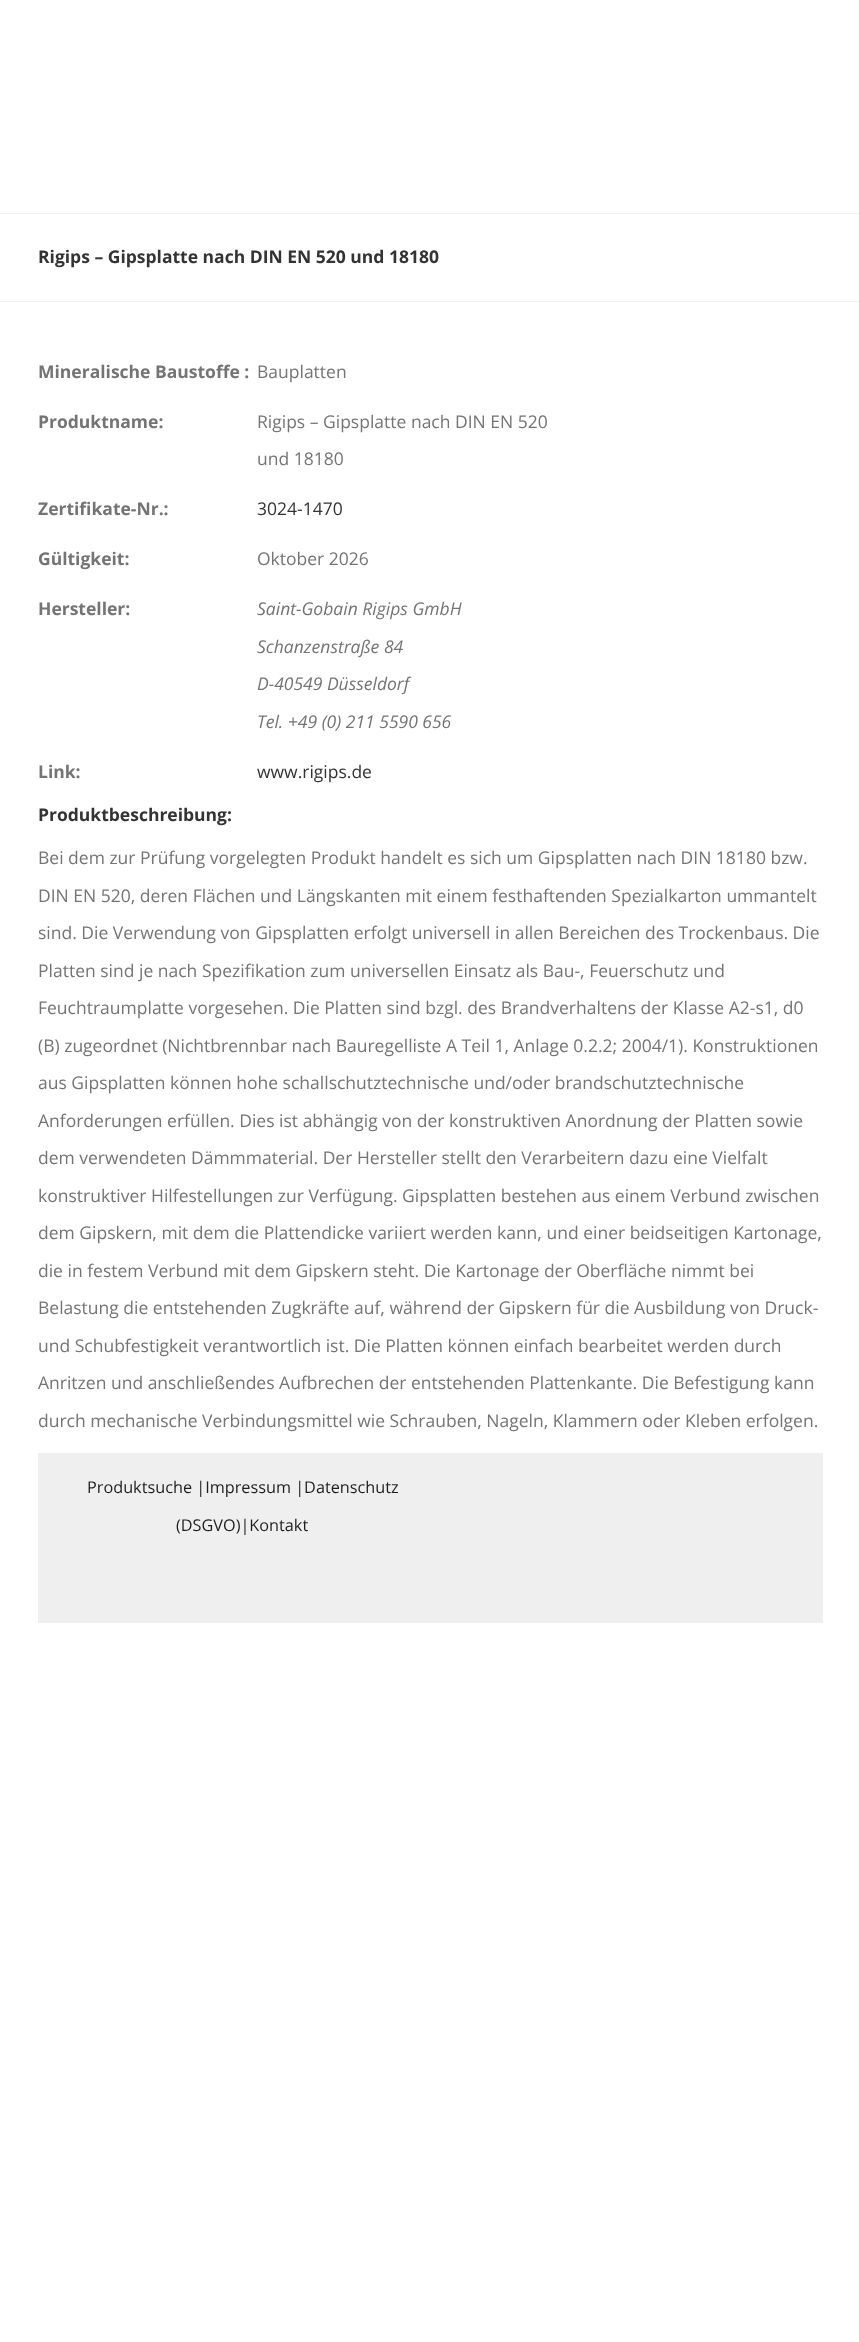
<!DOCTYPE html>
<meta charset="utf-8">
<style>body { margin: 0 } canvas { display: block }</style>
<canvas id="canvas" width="859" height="2342"></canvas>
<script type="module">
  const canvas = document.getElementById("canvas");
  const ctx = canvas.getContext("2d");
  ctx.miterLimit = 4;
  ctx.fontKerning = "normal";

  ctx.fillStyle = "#ffffff";
  ctx.fillRect(0, 0, 859, 2342);
  ctx.fillStyle = "#f2f2f2";
  ctx.fillRect(0, 213, 859, 1);
  ctx.fillRect(0, 301, 859, 1);
  ctx.font = "bold 17.5px Open Sans";
  ctx.fillStyle = "#333333";
  ctx.fillText("Rigips – Gipsplatte nach DIN EN 520 und 18180", 38, 263);
  ctx.fillStyle = "#747474";
  ctx.fillText("Mineralische Baustoffe :", 38, 378);
  ctx.font = "17.5px Open Sans";
  ctx.fillText("Bauplatten", 257, 378);
  ctx.font = "bold 17.5px Open Sans";
  ctx.fillText("Produktname:", 38, 428);
  ctx.font = "17.5px Open Sans";
  ctx.fillText("Rigips – Gipsplatte nach DIN EN 520", 257, 428);
  ctx.fillText("und 18180", 257, 465);
  ctx.font = "bold 17.5px Open Sans";
  ctx.fillText("Zertifikate-Nr.:", 38, 515);
  ctx.font = "17.5px Open Sans";
  ctx.fillStyle = "#333333";
  ctx.fillText("3024-1470", 257, 515);
  ctx.font = "bold 17.5px Open Sans";
  ctx.fillStyle = "#747474";
  ctx.fillText("Gültigkeit:", 38, 565);
  ctx.font = "17.5px Open Sans";
  ctx.fillText("Oktober 2026", 257, 565);
  ctx.font = "bold 17.5px Open Sans";
  ctx.fillText("Hersteller:", 38, 615);
  ctx.font = "italic 17.5px Open Sans";
  ctx.fillText("Saint-Gobain Rigips GmbH", 257, 615);
  ctx.fillText("Schanzenstraße 84", 257, 653);
  ctx.fillText("D-40549 Düsseldorf", 257, 690);
  ctx.fillText("Tel. +49 (0) 211 5590 656", 257, 728);
  ctx.font = "bold 17.5px Open Sans";
  ctx.fillText("Link:", 38, 778);
  ctx.font = "17.5px Open Sans";
  ctx.fillStyle = "#333333";
  ctx.fillText("www.rigips.de", 257, 778);
  ctx.font = "bold 17.5px Open Sans";
  ctx.fillText("Produktbeschreibung:", 38, 821);
  ctx.font = "17.5px Open Sans";
  ctx.fillStyle = "#747474";
  ctx.fillText("Bei dem zur Prüfung vorgelegten Produkt handelt es sich um Gipsplatten nach DIN 18180 bzw.", 38, 864);
  ctx.fillText("DIN EN 520, deren Flächen und Längskanten mit einem festhaftenden Spezialkarton ummantelt", 38, 902);
  ctx.fillText("sind. Die Verwendung von Gipsplatten erfolgt universell in allen Bereichen des Trockenbaus. Die", 38, 939);
  ctx.fillText("Platten sind je nach Spezifikation zum universellen Einsatz als Bau-, Feuerschutz und", 38, 977);
  ctx.fillText("Feuchtraumplatte vorgesehen. Die Platten sind bzgl. des Brandverhaltens der Klasse A2-s1, d0", 38, 1014);
  ctx.fillText("(B) zugeordnet (Nichtbrennbar nach Bauregelliste A Teil 1, Anlage 0.2.2; 2004/1). Konstruktionen", 38, 1052);
  ctx.fillText("aus Gipsplatten können hohe schallschutztechnische und/oder brandschutztechnische", 38, 1089);
  ctx.fillText("Anforderungen erfüllen. Dies ist abhängig von der konstruktiven Anordnung der Platten sowie", 38, 1127);
  ctx.fillText("dem verwendeten Dämmmaterial. Der Hersteller stellt den Verarbeitern dazu eine Vielfalt", 38, 1164);
  ctx.fillText("konstruktiver Hilfestellungen zur Verfügung. Gipsplatten bestehen aus einem Verbund zwischen", 38, 1202);
  ctx.fillText("dem Gipskern, mit dem die Plattendicke variiert werden kann, und einer beidseitigen Kartonage,", 38, 1239);
  ctx.fillText("die in festem Verbund mit dem Gipskern steht. Die Kartonage der Oberfläche nimmt bei", 38, 1277);
  ctx.fillText("Belastung die entstehenden Zugkräfte auf, während der Gipskern für die Ausbildung von Druck-", 38, 1314);
  ctx.fillText("und Schubfestigkeit verantwortlich ist. Die Platten können einfach bearbeitet werden durch", 38, 1352);
  ctx.fillText("Anritzen und anschließendes Aufbrechen der entstehenden Plattenkante. Die Befestigung kann", 38, 1389);
  ctx.fillText("durch mechanische Verbindungsmittel wie Schrauben, Nageln, Klammern oder Kleben erfolgen.", 38, 1427);
  ctx.fillStyle = "#efefef";
  ctx.fillRect(38, 1453, 785, 170);
  ctx.font = "16.25px Open Sans";
  ctx.fillStyle = "#1e1e1e";
  ctx.fillText("Produktsuche |Impressum |Datenschutz", 87, 1493);
  ctx.fillText("(DSGVO)|Kontakt", 176, 1531);
</script>
